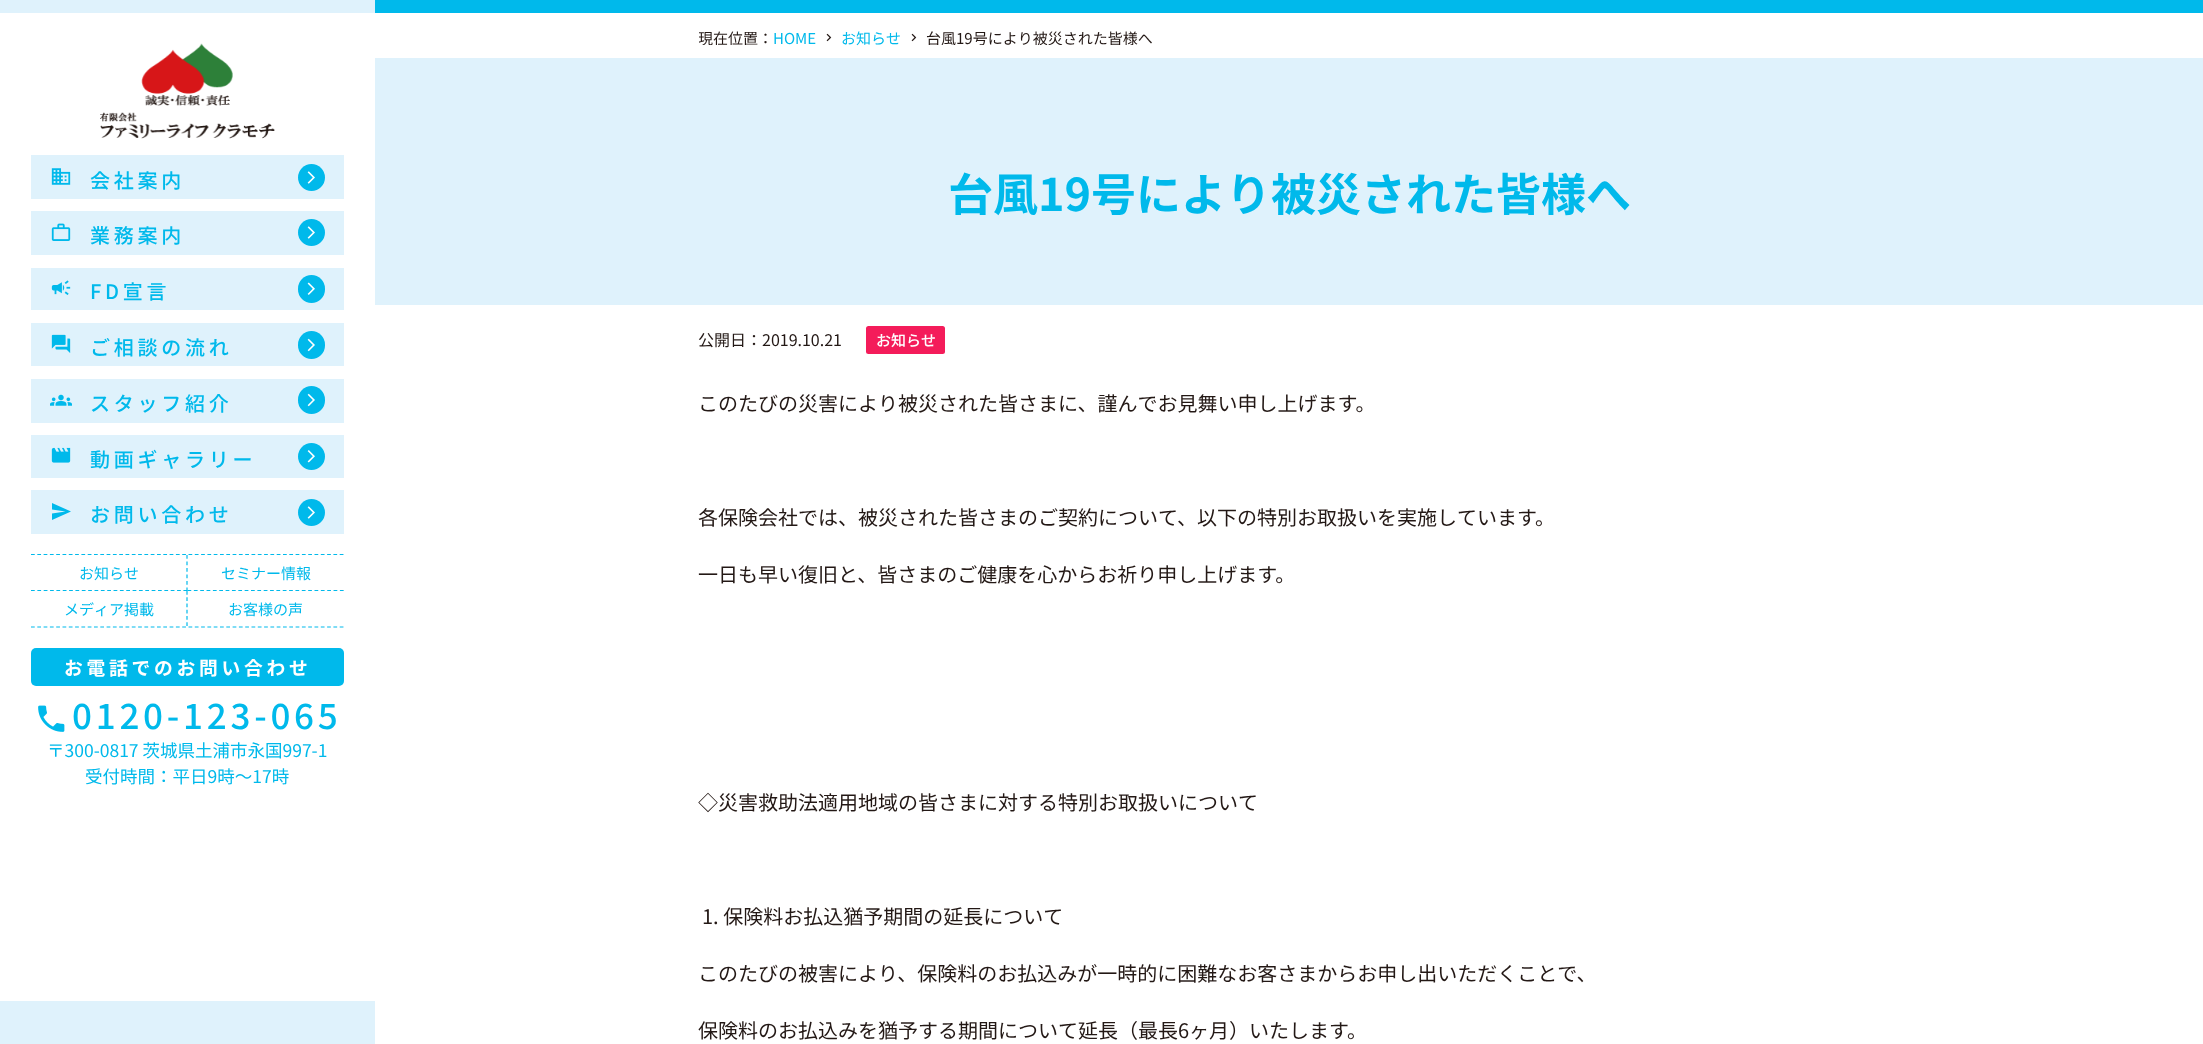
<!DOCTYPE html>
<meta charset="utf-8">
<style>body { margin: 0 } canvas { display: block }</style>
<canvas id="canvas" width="2203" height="1044"></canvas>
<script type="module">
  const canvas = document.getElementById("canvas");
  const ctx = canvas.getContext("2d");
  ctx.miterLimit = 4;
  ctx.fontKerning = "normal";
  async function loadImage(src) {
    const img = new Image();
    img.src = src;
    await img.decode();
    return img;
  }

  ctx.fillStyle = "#ffffff";
  ctx.fillRect(0, 0, 2203, 1044);
  ctx.fillStyle = "#dff2fc";
  ctx.fillRect(0, 0, 375, 13);
  ctx.fillRect(0, 1001, 375, 43);
  ctx.drawImage(await loadImage("img1.png"), 100, 43, 175, 96);
  ctx.fillRect(31, 155, 313, 44);
  ctx.drawImage(await loadImage("img2.png"), 51, 168, 20, 17);
  ctx.letterSpacing = "3.75px";
  ctx.font = "500 20px Noto Sans JP";
  ctx.fillStyle = "#00b9eb";
  ctx.fillText("会社案内", 90, 188);
  ctx.beginPath();
  ctx.arc(311.5, 177.5, 13.5, 0, Math.PI * 2);
  ctx.fill();
  ctx.drawImage(await loadImage("img3.png"), 307, 171, 8, 13);
  ctx.fillStyle = "#dff2fc";
  ctx.fillRect(31, 211, 313, 44);
  ctx.drawImage(await loadImage("img4.png"), 51, 223, 20, 18);
  ctx.fillStyle = "#00b9eb";
  ctx.fillText("業務案内", 90, 243);
  ctx.beginPath();
  ctx.arc(311.5, 232.5, 13.5, 0, Math.PI * 2);
  ctx.fill();
  ctx.drawImage(await loadImage("img3.png"), 307, 226, 8, 13);
  ctx.fillStyle = "#dff2fc";
  ctx.fillRect(31, 268, 313, 42);
  ctx.drawImage(await loadImage("img5.png"), 51, 280, 20, 15);
  ctx.fillStyle = "#00b9eb";
  ctx.fillText("FD宣言", 90, 299);
  ctx.beginPath();
  ctx.roundRect(298, 275, 27, 28, 13.5);
  ctx.fill();
  ctx.drawImage(await loadImage("img6.png"), 307, 282, 8, 13);
  ctx.fillStyle = "#dff2fc";
  ctx.fillRect(31, 323, 313, 43);
  ctx.drawImage(await loadImage("img7.png"), 51, 334, 20, 19);
  ctx.fillStyle = "#00b9eb";
  ctx.fillText("ご相談の流れ", 90, 355);
  ctx.beginPath();
  ctx.roundRect(298, 331, 27, 28, 13.5);
  ctx.fill();
  ctx.drawImage(await loadImage("img8.png"), 307, 338, 8, 14);
  ctx.fillStyle = "#dff2fc";
  ctx.fillRect(31, 379, 313, 44);
  ctx.drawImage(await loadImage("img9.png"), 50, 394, 22, 12);
  ctx.fillStyle = "#00b9eb";
  ctx.fillText("スタッフ紹介", 90, 411);
  ctx.beginPath();
  ctx.roundRect(298, 386, 27, 28, 13.5);
  ctx.fill();
  ctx.drawImage(await loadImage("img8.png"), 307, 393, 8, 14);
  ctx.fillStyle = "#dff2fc";
  ctx.fillRect(31, 435, 313, 43);
  ctx.drawImage(await loadImage("img10.png"), 51, 447, 20, 16);
  ctx.fillStyle = "#00b9eb";
  ctx.fillText("動画ギャラリー", 90, 467);
  ctx.beginPath();
  ctx.arc(311.5, 456.5, 13.5, 0, Math.PI * 2);
  ctx.fill();
  ctx.drawImage(await loadImage("img11.png"), 307, 450, 8, 13);
  ctx.fillStyle = "#dff2fc";
  ctx.fillRect(31, 490, 313, 44);
  ctx.fillStyle = "#00b9eb";
  ctx.beginPath();
  ctx.moveTo(52, 520);
  ctx.lineTo(52, 513.5);
  ctx.lineTo(65.5, 511.5);
  ctx.lineTo(52, 509.5);
  ctx.lineTo(52, 503);
  ctx.lineTo(71, 511.5);
  ctx.closePath();
  ctx.fill();
  ctx.fillText("お問い合わせ", 90, 522);
  ctx.beginPath();
  ctx.arc(311.5, 512.5, 13.5, 0, Math.PI * 2);
  ctx.fill();
  ctx.drawImage(await loadImage("img3.png"), 307, 506, 8, 13);
  ctx.beginPath();
  ctx.moveTo(31, 554.5);
  ctx.lineTo(344, 554.5);
  ctx.strokeStyle = "#00b9eb";
  ctx.lineWidth = 1.2;
  ctx.setLineDash([3.75, 2.55]);
  ctx.stroke();
  ctx.beginPath();
  ctx.moveTo(31, 627);
  ctx.lineTo(344, 627);
  ctx.stroke();
  ctx.beginPath();
  ctx.moveTo(187, 555);
  ctx.lineTo(187, 591);
  ctx.setLineDash([3.75, 2.75]);
  ctx.stroke();
  ctx.beginPath();
  ctx.moveTo(31, 590.5);
  ctx.lineTo(187.5, 590.5);
  ctx.setLineDash([3.75, 2.6]);
  ctx.stroke();
  ctx.letterSpacing = "0px";
  ctx.font = "15px Noto Sans JP";
  ctx.fillText("お知らせ", 79, 579);
  ctx.beginPath();
  ctx.moveTo(187.5, 590.5);
  ctx.lineTo(344, 590.5);
  ctx.stroke();
  ctx.fillText("セミナー情報", 221, 579);
  ctx.beginPath();
  ctx.moveTo(187, 591);
  ctx.lineTo(187, 626);
  ctx.setLineDash([3.75, 2.5]);
  ctx.stroke();
  ctx.fillText("メディア掲載", 64, 615);
  ctx.fillText("お客様の声", 228, 615);
  ctx.beginPath();
  ctx.roundRect(31, 648, 313, 38, 5);
  ctx.fill();
  ctx.letterSpacing = "3.75px";
  ctx.font = "bold 18.75px Noto Sans JP";
  ctx.fillStyle = "#ffffff";
  ctx.fillText("お電話でのお問い合わせ", 64, 675);
  ctx.drawImage(await loadImage("img12.png"), 38, 705, 27, 27);
  ctx.font = "500 35px Noto Sans JP";
  ctx.fillStyle = "#00b9eb";
  ctx.fillText("0120-123-065", 72, 729);
  ctx.letterSpacing = "0px";
  ctx.font = "17.5px Noto Sans JP";
  ctx.fillText("〒300-0817 茨城県土浦市永国997-1", 47, 757);
  ctx.fillText("受付時間：平⽇9時〜17時", 85, 783);
  ctx.fillRect(375, 0, 1828, 13);
  ctx.save();
  ctx.beginPath();
  ctx.rect(699, 25, 1182, 20);
  ctx.clip();
  ctx.font = "15px Noto Sans JP";
  ctx.fillStyle = "#231815";
  ctx.fillText("現在位置：", 698, 44);
  ctx.restore();
  ctx.font = "15px Noto Sans JP";
  ctx.fillText("HOME", 773, 44);
  ctx.drawImage(await loadImage("img13.png"), 826, 33, 6, 9);
  ctx.fillText("お知らせ", 841, 44);
  ctx.drawImage(await loadImage("img13.png"), 911, 33, 6, 9);
  ctx.save();
  ctx.beginPath();
  ctx.rect(699, 25, 1182, 20);
  ctx.clip();
  ctx.fillStyle = "#231815";
  ctx.fillText("台風19号により被災された皆様へ", 926, 44);
  ctx.restore();
  ctx.fillStyle = "#dff2fc";
  ctx.fillRect(375, 58, 1828, 247);
  ctx.font = "bold 45px Noto Sans JP";
  ctx.fillStyle = "#00b9eb";
  ctx.fillText("台風19号により被災された皆様へ", 948, 211);
  ctx.font = "16px Noto Sans JP";
  ctx.fillStyle = "#231815";
  ctx.fillText("公開日：2019.10.21", 698, 346);
  ctx.fillStyle = "#f41c5a";
  ctx.beginPath();
  ctx.roundRect(866, 326, 79, 28, 2.5);
  ctx.fill();
  ctx.font = "500 15px Noto Sans JP";
  ctx.fillStyle = "#ffffff";
  ctx.fillText("お知らせ", 876, 346);
  ctx.font = "20px Noto Sans JP";
  ctx.fillStyle = "#231815";
  ctx.fillText("このたびの災害により被災された皆さまに、謹んでお見舞い申し上げます。", 698, 411);
  ctx.fillText("各保険会社では、被災された皆さまのご契約について、以下の特別お取扱いを実施しています。", 698, 525);
  ctx.fillText("一日も早い復旧と、皆さまのご健康を心からお祈り申し上げます。", 698, 582);
  ctx.fillText("◇災害救助法適用地域の皆さまに対する特別お取扱いについて", 698, 810);
  ctx.fillText("1. 保険料お払込猶予期間の延長について", 702, 924);
  ctx.fillText("このたびの被害により、保険料のお払込みが一時的に困難なお客さまからお申し出いただくことで、", 698, 981);
  ctx.fillText("保険料のお払込みを猶予する期間について延長（最長6ヶ月）いたします。", 698, 1038);
</script>
